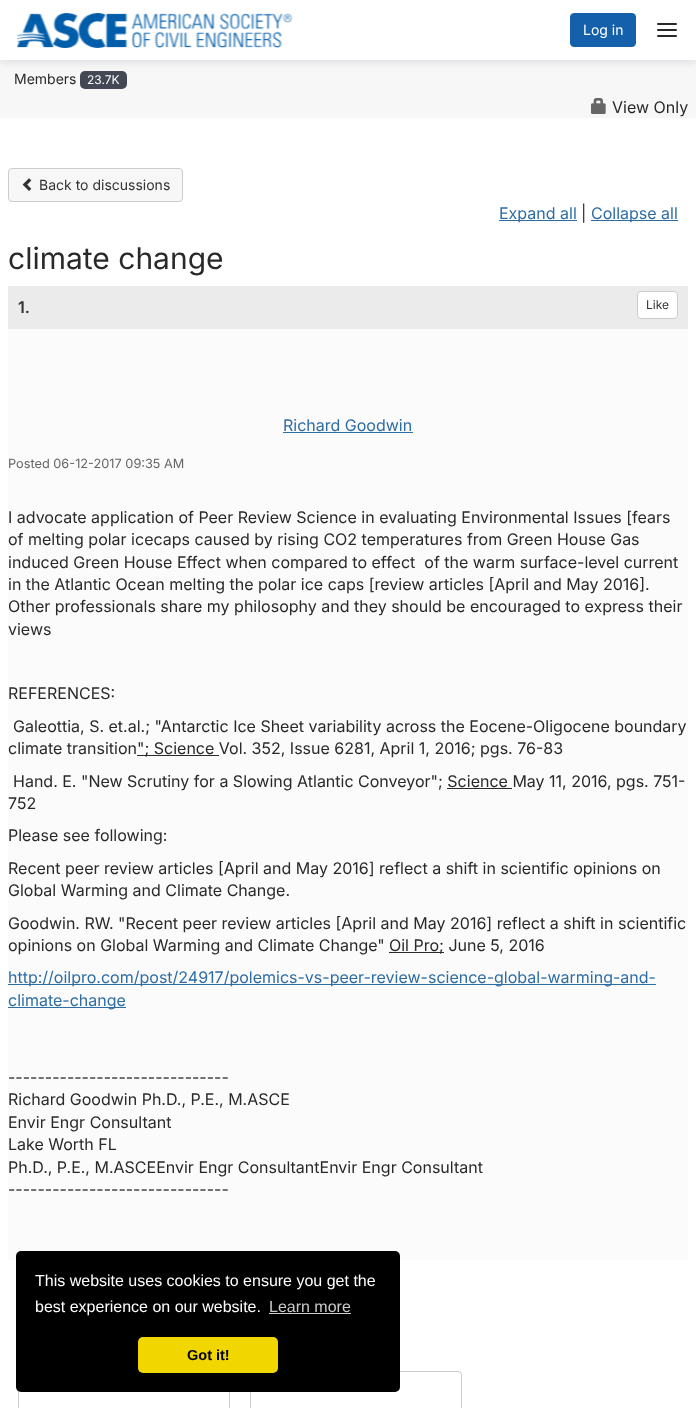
<!DOCTYPE html>
<meta charset="utf-8">
<style>body { margin: 0 } canvas { display: block }</style>
<canvas id="canvas" width="696" height="1408"></canvas>
<script type="module">
  const canvas = document.getElementById("canvas");
  const ctx = canvas.getContext("2d");
  ctx.miterLimit = 4;
  ctx.fontKerning = "normal";
  async function loadImage(src) {
    const img = new Image();
    img.src = src;
    await img.decode();
    return img;
  }

  ctx.fillStyle = "#ffffff";
  ctx.fillRect(0, 0, 696, 1408);
  ctx.fillStyle = "#f7f7f7";
  ctx.fillRect(0, 60, 696, 58);
  ctx.fillStyle = "#444855";
  ctx.beginPath();
  ctx.roundRect(80, 71, 47, 18, 5);
  ctx.fill();
  ctx.fillStyle = "rgba(131, 135, 145, 0.24)";
  ctx.filter = "blur(4px)";
  ctx.beginPath();
  ctx.rect(0, 2, 696, 60);
  ctx.fill();
  ctx.filter = "none";
  ctx.fillStyle = "#ffffff";
  ctx.fillRect(0, 0, 696, 60);
  ctx.drawImage(await loadImage("img1.png"), 17, 13, 276, 35);
  ctx.fillStyle = "#1460aa";
  ctx.beginPath();
  ctx.roundRect(570.5, 13.5, 65, 33, 3.5);
  ctx.fill();
  ctx.strokeStyle = "#1460aa";
  ctx.stroke();
  ctx.font = "14px Inter";
  ctx.fillStyle = "#ffffff";
  ctx.fillText("Log in", 583, 35);
  ctx.fillStyle = "#292929";
  ctx.beginPath();
  ctx.roundRect(657, 23, 20, 2, 1);
  ctx.fill();
  ctx.beginPath();
  ctx.roundRect(657, 29, 20, 2, 1);
  ctx.fill();
  ctx.beginPath();
  ctx.roundRect(657, 35, 20, 2, 1);
  ctx.fill();
  ctx.fillText("Members", 14, 84);
  ctx.font = "12px Inter";
  ctx.fillStyle = "#ffffff";
  ctx.fillText("23.7K", 87, 84);
  ctx.drawImage(await loadImage("img2.png"), 591, 98, 15, 16);
  ctx.font = "16px Inter";
  ctx.fillStyle = "#292929";
  ctx.fillText("View Only", 612, 113);
  ctx.fillStyle = "#f7f7f7";
  ctx.beginPath();
  ctx.roundRect(8.5, 168.5, 174, 33, 3.5);
  ctx.fill();
  ctx.strokeStyle = "#cccccc";
  ctx.stroke();
  ctx.drawImage(await loadImage("img3.png"), 22, 178, 10, 13);
  ctx.font = "14px Inter";
  ctx.fillStyle = "#333333";
  ctx.fillText("Back to discussions", 39, 190);
  ctx.fillStyle = "#2e6da4";
  ctx.fillRect(499, 220, 78, 1);
  ctx.font = "16px Inter";
  ctx.fillText("Expand all", 499, 219);
  ctx.fillStyle = "#333333";
  ctx.fillText("|", 581, 219);
  ctx.fillStyle = "#2e6da4";
  ctx.fillRect(591, 220, 87, 1);
  ctx.fillText("Collapse all", 591, 219);
  ctx.font = "30px Inter";
  ctx.fillStyle = "#292929";
  ctx.fillText("climate change", 8, 269);
  ctx.fillStyle = "#fbfbfb";
  ctx.fillRect(8, 329, 680, 931);
  ctx.fillStyle = "#ebebeb";
  ctx.fillRect(8, 286, 680, 43);
  ctx.font = "600 16px Inter";
  ctx.fillStyle = "#333333";
  ctx.fillText("1.", 18, 313);
  ctx.fillStyle = "#ffffff";
  ctx.beginPath();
  ctx.roundRect(637.5, 291.5, 40, 27, 3.5);
  ctx.fill();
  ctx.stroke();
  ctx.font = "12px Inter";
  ctx.fillStyle = "#333333";
  ctx.fillText("Like", 646, 309);
  ctx.font = "16px Inter";
  ctx.fillStyle = "#2e6da4";
  ctx.fillText("Richard Goodwin", 283, 431);
  ctx.fillRect(283, 432, 130, 1);
  ctx.font = "12.75px Inter";
  ctx.fillStyle = "#666666";
  ctx.fillText("Posted 06-12-2017 09:35 AM", 8, 468);
  ctx.font = "16px Inter";
  ctx.fillStyle = "#292929";
  ctx.fillText("I advocate application of Peer Review Science in evaluating Environmental Issues [fears", 8, 523);
  ctx.fillText("of melting polar icecaps caused by rising CO2 temperatures from Green House Gas", 8, 545);
  ctx.fillText("induced Green House Effect when compared to effect  of the warm surface-level current", 8, 568);
  ctx.fillText("in the Atlantic Ocean melting the polar ice caps [review articles [April and May 2016].", 8, 590);
  ctx.fillText("Other professionals share my philosophy and they should be encouraged to express their", 8, 612);
  ctx.fillText("views", 8, 635);
  ctx.fillText("REFERENCES:", 8, 699);
  ctx.fillText("Galeottia, S. et.al.; \"Antarctic Ice Sheet variability across the Eocene-Oligocene boundary", 13, 732);
  ctx.fillText("climate transition", 8, 754);
  ctx.fillRect(137, 755, 82, 1);
  ctx.fillText("\"; Science Vol. 352, Issue 6281, April 1, 2016; pgs. 76-83", 137, 754);
  ctx.fillText("Hand. E. \"New Scrutiny for a Slowing Atlantic Conveyor\"; Science May 11, 2016, pgs. 751-", 13, 787);
  ctx.fillRect(447, 788, 65, 1);
  ctx.fillText("752", 8, 809);
  ctx.fillText("Please see following:", 8, 841);
  ctx.fillText("Recent peer review articles [April and May 2016] reflect a shift in scientific opinions on", 8, 874);
  ctx.fillText("Global Warming and Climate Change.", 8, 896);
  ctx.fillText("Goodwin. RW. \"Recent peer review articles [April and May 2016] reflect a shift in scientific", 8, 929);
  ctx.fillText("opinions on Global Warming and Climate Change\"", 8, 951);
  ctx.fillRect(389, 952, 55, 1);
  ctx.fillText("Oil Pro; June 5, 2016", 389, 951);
  ctx.fillStyle = "#2e6da4";
  ctx.fillRect(8, 984, 648, 1);
  ctx.fillText("http://oilpro.com/post/24917/polemics-vs-peer-review-science-global-warming-and-", 8, 983);
  ctx.fillRect(8, 1007, 118, 1);
  ctx.fillText("climate-change", 8, 1006);
  ctx.fillStyle = "#292929";
  ctx.fillText("------------------------------", 8, 1083);
  ctx.fillText("Richard Goodwin Ph.D., P.E., M.ASCE", 8, 1105);
  ctx.fillText("Envir Engr Consultant", 8, 1128);
  ctx.fillText("Lake Worth FL", 8, 1150);
  ctx.fillText("Ph.D., P.E., M.ASCEEnvir Engr ConsultantEnvir Engr Consultant", 8, 1173);
  ctx.fillText("------------------------------", 8, 1195);
  ctx.strokeRect(18.5, 1371.5, 211, 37);
  ctx.beginPath();
  ctx.roundRect(250.5, 1371.5, 211, 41, 3.5);
  ctx.stroke();
  ctx.fillStyle = "#000000";
  ctx.beginPath();
  ctx.roundRect(16, 1251, 384, 141, 5);
  ctx.fill();
  ctx.font = "16px Liberation Sans";
  ctx.fillStyle = "#ffffff";
  ctx.fillText("This website uses cookies to ensure you get the", 35, 1286);
  ctx.fillText("best experience on our website.", 35, 1312);
  ctx.fillStyle = "#cccccc";
  ctx.fillText("Learn more", 269, 1312);
  ctx.fillRect(269, 1313, 82, 1);
  ctx.fillStyle = "#f1d600";
  ctx.beginPath();
  ctx.roundRect(138, 1337, 140, 36, 5);
  ctx.fill();
  ctx.font = "bold 14.5px Liberation Sans";
  ctx.fillStyle = "#000000";
  ctx.fillText("Got it!", 187, 1360);
</script>
